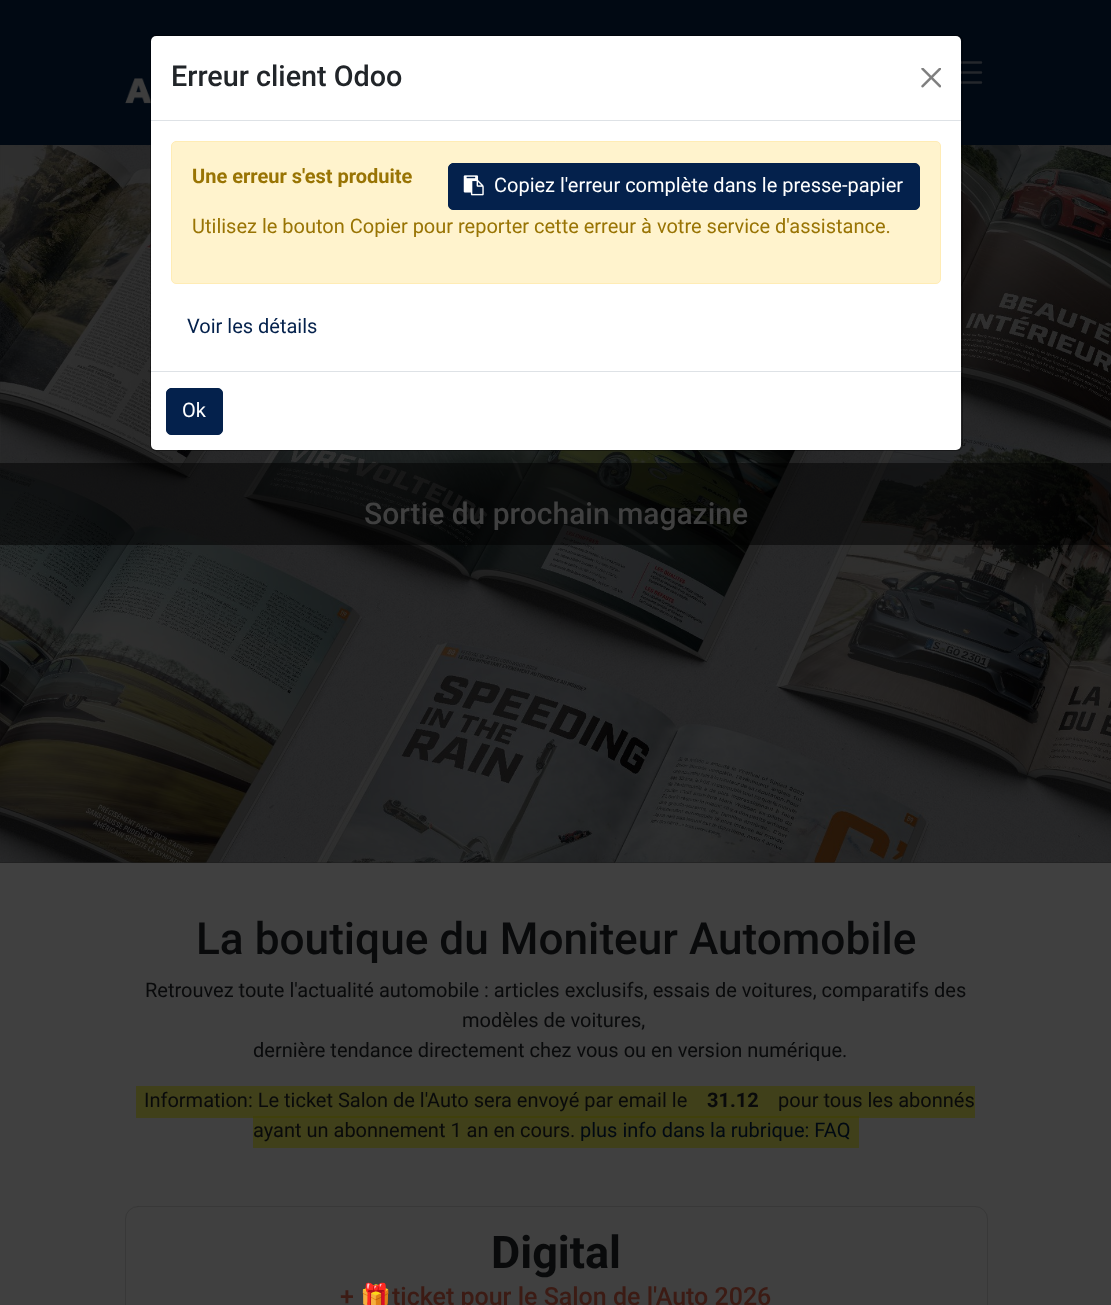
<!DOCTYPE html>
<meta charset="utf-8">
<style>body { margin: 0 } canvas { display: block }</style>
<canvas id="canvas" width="1111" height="1305"></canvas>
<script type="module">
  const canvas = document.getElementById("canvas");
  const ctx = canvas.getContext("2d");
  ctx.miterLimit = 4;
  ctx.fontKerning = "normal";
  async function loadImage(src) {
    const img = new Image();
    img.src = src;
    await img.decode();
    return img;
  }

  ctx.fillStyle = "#404040";
  ctx.fillRect(0, 0, 1111, 1305);
  ctx.fillStyle = "#40401a";
  ctx.fillRect(253, 1118, 606, 30);
  ctx.fillStyle = "#010913";
  ctx.fillRect(0, 0, 1111, 145);
  ctx.beginPath();
  ctx.moveTo(954, 62.5);
  ctx.lineTo(981, 62.5);
  ctx.moveTo(954, 72.5);
  ctx.lineTo(981, 72.5);
  ctx.moveTo(954, 82.5);
  ctx.lineTo(981, 82.5);
  ctx.strokeStyle = "#24272c";
  ctx.lineWidth = 2.5;
  ctx.lineCap = "round";
  ctx.stroke();
  ctx.drawImage(await loadImage("img3.png"), 125, 78, 26, 26);
  ctx.fillStyle = "#1c1c1c";
  ctx.fillRect(0, 862, 1111, 1);
  ctx.drawImage(await loadImage("img4.png"), 0, 145, 1111, 718);
  ctx.beginPath();
  ctx.roundRect(150.5, 35.5, 812, 415, 5.5);
  ctx.strokeStyle = "rgba(0, 0, 0, 0.2)";
  ctx.lineWidth = 1;
  ctx.stroke();
  ctx.fillStyle = "#ffffff";
  ctx.beginPath();
  ctx.roundRect(151, 36, 810, 414, 5);
  ctx.fill();
  ctx.beginPath();
  ctx.roundRect(150.5, 35.5, 812, 415, 5.5);
  ctx.stroke();
  ctx.fillStyle = "#dee2e6";
  ctx.fillRect(151, 120, 810, 1);
  ctx.font = "500 28.75px Roboto";
  ctx.fillStyle = "#212529";
  ctx.fillText("Erreur client Odoo", 171, 86);
  ctx.drawImage(await loadImage("img1.png"), 921, 68, 20, 20);
  ctx.fillStyle = "#fff3cd";
  ctx.beginPath();
  ctx.roundRect(171.5, 141.5, 769, 142, 4.5);
  ctx.fill();
  ctx.strokeStyle = "#ffecb5";
  ctx.stroke();
  ctx.font = "bold 20px Roboto";
  ctx.fillStyle = "#997404";
  ctx.fillText("Une erreur s'est produite", 192, 183);
  ctx.fillStyle = "#04214c";
  ctx.beginPath();
  ctx.roundRect(448.5, 163.5, 471, 46, 4.5);
  ctx.fill();
  ctx.strokeStyle = "#04214c";
  ctx.stroke();
  ctx.drawImage(await loadImage("img2.png"), 463, 175, 21, 21);
  ctx.font = "20px Roboto";
  ctx.fillStyle = "#ffffff";
  ctx.fillText("Copiez l'erreur complète dans le presse-papier", 494, 192);
  ctx.fillStyle = "#997404";
  ctx.fillText("Utilisez le bouton Copier pour reporter cette erreur à votre service d'assistance.", 192, 233);
  ctx.fillStyle = "#04214c";
  ctx.fillText("Voir les détails", 187, 333);
  ctx.fillStyle = "#dee2e6";
  ctx.fillRect(151, 371, 810, 1);
  ctx.fillStyle = "#04214c";
  ctx.beginPath();
  ctx.roundRect(166.5, 388.5, 56, 46, 4.5);
  ctx.fill();
  ctx.stroke();
  ctx.fillStyle = "#ffffff";
  ctx.fillText("Ok", 182, 417);
  ctx.fillStyle = "rgba(0, 0, 0, 0.5)";
  ctx.fillRect(0, 463, 1111, 82);
  ctx.font = "500 30px Roboto";
  ctx.fillStyle = "#404040";
  ctx.fillText("Sortie du prochain magazine", 364, 524);
  ctx.font = "500 44.2px Roboto";
  ctx.fillStyle = "#090a0b";
  ctx.fillText("La boutique du Moniteur Automobile", 196, 954);
  ctx.font = "20px Roboto";
  ctx.fillText("Retrouvez toute l'actualité automobile : articles exclusifs, essais de voitures, comparatifs des", 145, 997);
  ctx.fillText("modèles de voitures,", 462, 1027);
  ctx.fillText("dernière tendance directement chez vous ou en version numérique.", 253, 1057);
  ctx.fillStyle = "#40401a";
  ctx.fillRect(136, 1086, 563, 32);
  ctx.fillStyle = "#090a0b";
  ctx.fillText("Information: Le ticket Salon de l'Auto sera envoyé par email le", 144, 1107);
  ctx.fillStyle = "#40400b";
  ctx.fillRect(253, 1116, 518, 2);
  ctx.fillStyle = "#40401a";
  ctx.fillRect(699, 1086, 72, 30);
  ctx.font = "bold 20px Roboto";
  ctx.fillStyle = "#090a0b";
  ctx.fillText("31.12", 707, 1107);
  ctx.fillStyle = "#40401a";
  ctx.fillRect(771, 1086, 204, 32);
  ctx.font = "20px Roboto";
  ctx.fillStyle = "#090a0b";
  ctx.fillText("pour tous les abonnés", 778, 1107);
  ctx.fillText("ayant un abonnement 1 an en cours.", 253, 1137);
  ctx.fillStyle = "#010913";
  ctx.fillText("plus info dans la rubrique: FAQ", 580, 1137);
  ctx.fillStyle = "#40400b";
  ctx.fillRect(771, 1116, 88, 2);
  ctx.beginPath();
  ctx.roundRect(125.5, 1206.5, 862, 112, 12.5);
  ctx.strokeStyle = "#383838";
  ctx.stroke();
  ctx.font = "bold 45px Roboto";
  ctx.fillStyle = "#090a0b";
  ctx.fillText("Digital", 491, 1268);
  ctx.font = "500 25px Roboto";
  ctx.fillStyle = "#3c1b14";
  ctx.fillText("+", 340, 1305);
  ctx.font = "25px Noto Color Emoji";
  ctx.fillText("🎁", 360, 1305);
  ctx.font = "500 25px Roboto";
  ctx.fillText("ticket pour le Salon de l'Auto 2026", 392, 1305);
</script>
